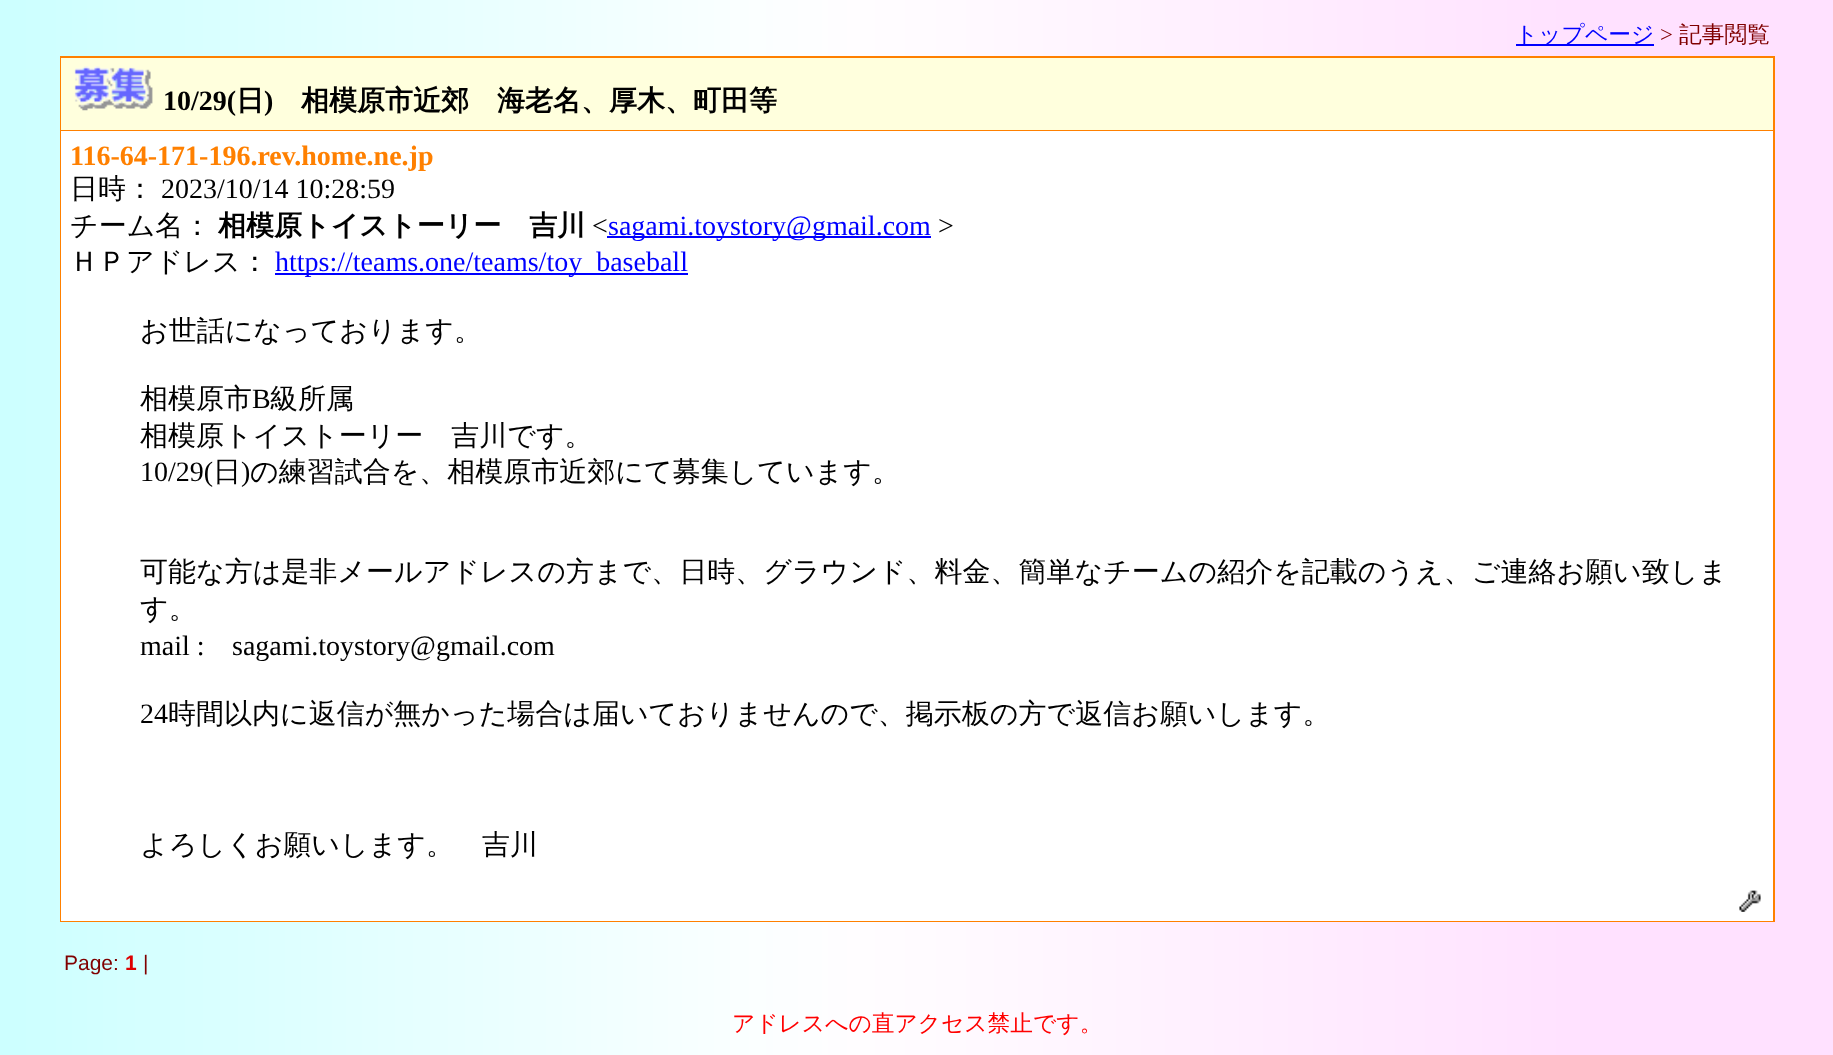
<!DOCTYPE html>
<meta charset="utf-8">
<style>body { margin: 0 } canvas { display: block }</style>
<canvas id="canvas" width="1833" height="1055"></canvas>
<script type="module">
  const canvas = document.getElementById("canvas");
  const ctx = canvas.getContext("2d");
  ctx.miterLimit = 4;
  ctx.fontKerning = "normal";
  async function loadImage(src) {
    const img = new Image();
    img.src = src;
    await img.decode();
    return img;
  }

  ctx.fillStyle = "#ffffff";
  ctx.fillRect(0, 0, 1833, 1055);
  ctx.drawImage(await loadImage("img1.png"), 0, 0, 1833, 1055);
  ctx.fillStyle = "#0000ff";
  ctx.fillRect(1516, 44, 138, 2);
  ctx.font = "500 22.75px WenQuanYi Zen Hei";
  ctx.fillText("トップページ", 1515, 42);
  ctx.font = "22.75px Liberation Serif";
  ctx.fillStyle = "#800000";
  ctx.fillText(">", 1660, 42);
  ctx.font = "500 22.75px WenQuanYi Zen Hei";
  ctx.fillText("記事閲覧", 1679, 42);
  ctx.fillStyle = "#ff8000";
  ctx.fillRect(60, 56, 1715, 866);
  ctx.fillStyle = "#ffffdd";
  ctx.fillRect(61, 58, 1712, 72);
  ctx.drawImage(await loadImage("img2.png"), 74, 66, 79, 45);
  ctx.font = "bold 28px Liberation Serif";
  ctx.fillStyle = "#000000";
  ctx.fillText("10/29(", 163, 110);
  ctx.font = "bold 28px WenQuanYi Zen Hei";
  ctx.fillText("日", 236, 110);
  ctx.font = "bold 28px Liberation Serif";
  ctx.fillText(")", 264, 110);
  ctx.font = "bold 28px WenQuanYi Zen Hei";
  ctx.fillText("相模原市近郊　海老名、厚木、町田等", 301, 110);
  ctx.fillStyle = "#ffffff";
  ctx.fillRect(61, 131, 1712, 790);
  ctx.font = "bold 28px Liberation Serif";
  ctx.fillStyle = "#ff8000";
  ctx.fillText("116-64-171-196.rev.home.ne.jp", 70, 165);
  ctx.font = "500 28px WenQuanYi Zen Hei";
  ctx.fillStyle = "#000000";
  ctx.fillText("日時：", 70, 198);
  ctx.font = "28px Liberation Serif";
  ctx.fillText("2023/10/14 10:28:59", 161, 198);
  ctx.font = "500 28px WenQuanYi Zen Hei";
  ctx.fillText("チーム名：", 70, 235);
  ctx.font = "bold 28px WenQuanYi Zen Hei";
  ctx.fillText("相模原トイストーリー　吉川", 218, 235);
  ctx.font = "28px Liberation Serif";
  ctx.fillText("<", 592, 235);
  ctx.fillStyle = "#0000ff";
  ctx.fillRect(607, 236, 324, 2);
  ctx.fillText("sagami.toystory@gmail.com", 608, 235);
  ctx.fillStyle = "#000000";
  ctx.fillText(">", 938, 235);
  ctx.font = "500 28px WenQuanYi Zen Hei";
  ctx.fillText("ＨＰアドレス：", 70, 271);
  ctx.fillStyle = "#0000ff";
  ctx.fillRect(275, 273, 413, 2);
  ctx.font = "28px Liberation Serif";
  ctx.fillText("https://teams.one/teams/toy_baseball", 275, 271);
  ctx.font = "500 28px WenQuanYi Zen Hei";
  ctx.fillStyle = "#000000";
  ctx.fillText("お世話になっております。", 140, 340);
  ctx.fillText("相模原市", 140, 408);
  ctx.font = "28px Liberation Serif";
  ctx.fillText("B", 252, 408);
  ctx.font = "500 28px WenQuanYi Zen Hei";
  ctx.fillText("級所属", 270, 408);
  ctx.fillText("相模原トイストーリー　吉川です。", 140, 445);
  ctx.font = "28px Liberation Serif";
  ctx.fillText("10/29(", 140, 481);
  ctx.font = "500 28px WenQuanYi Zen Hei";
  ctx.fillText("日", 213, 481);
  ctx.font = "28px Liberation Serif";
  ctx.fillText(")", 241, 481);
  ctx.font = "500 28px WenQuanYi Zen Hei";
  ctx.fillText("の練習試合を、相模原市近郊にて募集しています。", 250, 481);
  ctx.fillText("可能な方は是非メールアドレスの方まで、日時、グラウンド、料金、簡単なチームの紹介を記載のうえ、ご連絡お願い致しま", 140, 581);
  ctx.fillText("す。", 140, 618);
  ctx.font = "28px Liberation Serif";
  ctx.fillText("mail :", 140, 655);
  ctx.fillText("sagami.toystory@gmail.com", 232, 655);
  ctx.fillText("24", 140, 723);
  ctx.font = "500 28px WenQuanYi Zen Hei";
  ctx.fillText("時間以内に返信が無かった場合は届いておりませんので、掲示板の方で返信お願いします。", 168, 723);
  ctx.fillText("よろしくお願いします。　吉川", 140, 854);
  ctx.drawImage(await loadImage("img3.png"), 1739, 890, 22, 22);
  ctx.font = "21px Liberation Sans";
  ctx.fillStyle = "#800000";
  ctx.fillText("Page:", 64, 970);
  ctx.font = "bold 21px Liberation Sans";
  ctx.fillStyle = "#dd0000";
  ctx.fillText("1", 125, 970);
  ctx.font = "21px Liberation Sans";
  ctx.fillStyle = "#800000";
  ctx.fillText("|", 143, 970);
  ctx.font = "500 22.75px WenQuanYi Zen Hei";
  ctx.fillStyle = "#ff0000";
  ctx.fillText("アドレスへの直アクセス禁止です。", 732, 1031);
</script>
